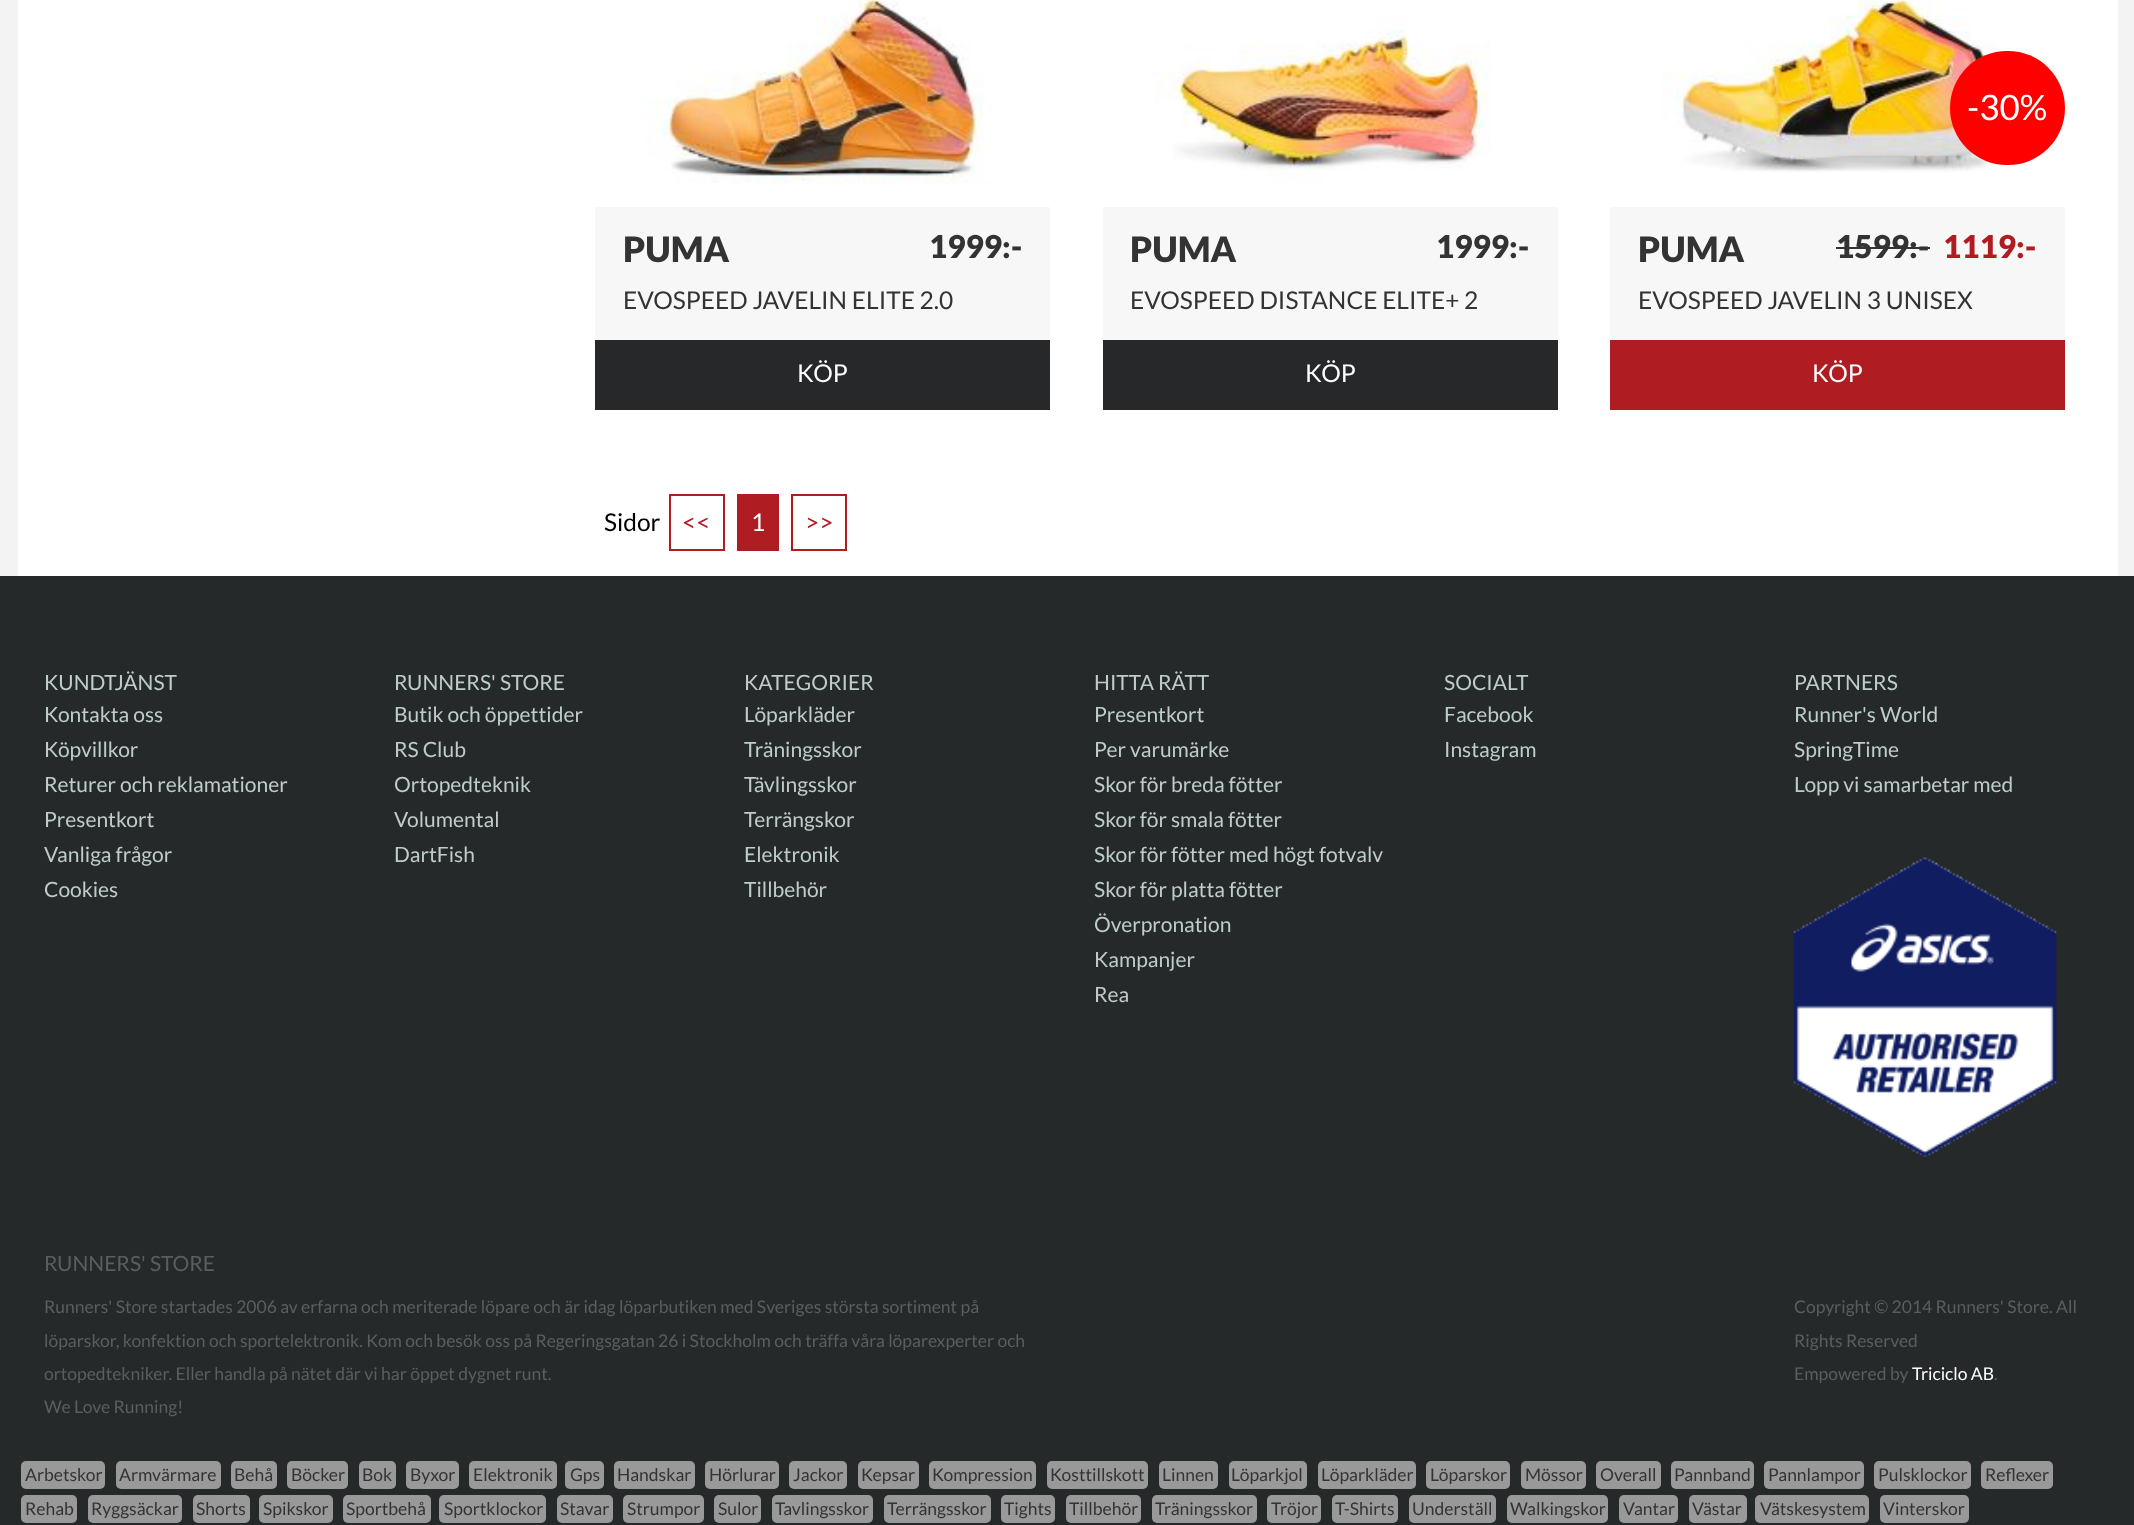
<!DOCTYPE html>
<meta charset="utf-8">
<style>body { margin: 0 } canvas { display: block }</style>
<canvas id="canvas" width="2134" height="1525"></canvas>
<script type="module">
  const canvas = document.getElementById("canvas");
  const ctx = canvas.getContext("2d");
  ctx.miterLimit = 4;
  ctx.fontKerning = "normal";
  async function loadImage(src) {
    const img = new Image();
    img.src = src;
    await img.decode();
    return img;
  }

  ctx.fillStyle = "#f3f3f3";
  ctx.fillRect(0, 0, 2134, 1525);
  ctx.fillStyle = "#ffffff";
  ctx.fillRect(18, 0, 2100, 576);
  ctx.drawImage(await loadImage("img1.png"), 647, 0, 337, 185);
  ctx.fillStyle = "#f7f7f7";
  ctx.fillRect(595, 207, 455, 133);
  ctx.font = "900 35px Lato";
  ctx.fillStyle = "#333333";
  ctx.fillText("PUMA", 623, 262);
  ctx.font = "900 31.5px Lato";
  ctx.fillText("1999:-", 929, 258);
  ctx.font = "24.5px Lato";
  ctx.fillText("EVOSPEED JAVELIN ELITE 2.0", 623, 309);
  ctx.fillStyle = "#27282a";
  ctx.fillRect(595, 340, 455, 70);
  ctx.fillStyle = "#ffffff";
  ctx.fillText("KÖP", 797, 382);
  ctx.drawImage(await loadImage("img2.png"), 1155, 17, 336, 167);
  ctx.fillStyle = "#f7f7f7";
  ctx.fillRect(1103, 207, 455, 133);
  ctx.font = "900 35px Lato";
  ctx.fillStyle = "#333333";
  ctx.fillText("PUMA", 1130, 262);
  ctx.font = "900 31.5px Lato";
  ctx.fillText("1999:-", 1436, 258);
  ctx.font = "24.5px Lato";
  ctx.fillText("EVOSPEED DISTANCE ELITE+ 2", 1130, 309);
  ctx.fillStyle = "#27282a";
  ctx.fillRect(1103, 340, 455, 70);
  ctx.fillStyle = "#ffffff";
  ctx.fillText("KÖP", 1305, 382);
  ctx.drawImage(await loadImage("img3.png"), 1662, 0, 337, 172);
  ctx.fillStyle = "#ff0000";
  ctx.beginPath();
  ctx.roundRect(1950, 51, 115, 114, 57);
  ctx.fill();
  ctx.font = "35px Lato";
  ctx.fillStyle = "#ffffff";
  ctx.fillText("-30%", 1967, 120);
  ctx.fillStyle = "#f7f7f7";
  ctx.fillRect(1610, 207, 455, 133);
  ctx.font = "900 35px Lato";
  ctx.fillStyle = "#333333";
  ctx.fillText("PUMA", 1638, 262);
  ctx.font = "900 31.5px Lato";
  ctx.fillText("1599:-", 1836, 258);
  ctx.fillRect(1836, 247, 94, 2);
  ctx.fillStyle = "#af1c22";
  ctx.fillText("1119:-", 1943, 258);
  ctx.font = "24.5px Lato";
  ctx.fillStyle = "#333333";
  ctx.fillText("EVOSPEED JAVELIN 3 UNISEX", 1638, 309);
  ctx.fillStyle = "#af1c22";
  ctx.fillRect(1610, 340, 455, 70);
  ctx.fillStyle = "#ffffff";
  ctx.fillText("KÖP", 1812, 382);
  ctx.fillStyle = "#000000";
  ctx.fillText("Sidor", 604, 531);
  ctx.strokeStyle = "#af1c22";
  ctx.lineWidth = 2;
  ctx.strokeRect(670, 495, 54, 55);
  ctx.fillStyle = "#af1c22";
  ctx.fillText("<<", 682, 531);
  ctx.fillRect(737, 494, 42, 57);
  ctx.fillStyle = "#ffffff";
  ctx.fillText("1", 751, 531);
  ctx.strokeRect(792, 495, 54, 55);
  ctx.fillStyle = "#af1c22";
  ctx.fillText(">>", 805, 531);
  ctx.fillStyle = "#262929";
  ctx.fillRect(0, 576, 2134, 949);
  ctx.font = "21px Lato";
  ctx.fillStyle = "#becccc";
  ctx.fillText("KUNDTJÄNST", 44, 690);
  ctx.fillText("Kontakta oss", 44, 722);
  ctx.fillText("Köpvillkor", 44, 757);
  ctx.fillText("Returer och reklamationer", 44, 792);
  ctx.fillText("Presentkort", 44, 827);
  ctx.fillText("Vanliga frågor", 44, 862);
  ctx.fillText("Cookies", 44, 897);
  ctx.fillText("RUNNERS' STORE", 394, 690);
  ctx.fillText("Butik och öppettider", 394, 722);
  ctx.fillText("RS Club", 394, 757);
  ctx.fillText("Ortopedteknik", 394, 792);
  ctx.fillText("Volumental", 394, 827);
  ctx.fillText("DartFish", 394, 862);
  ctx.fillText("KATEGORIER", 744, 690);
  ctx.fillText("Löparkläder", 744, 722);
  ctx.fillText("Träningsskor", 744, 757);
  ctx.fillText("Tävlingsskor", 744, 792);
  ctx.fillText("Terrängskor", 744, 827);
  ctx.fillText("Elektronik", 744, 862);
  ctx.fillText("Tillbehör", 744, 897);
  ctx.fillText("HITTA RÄTT", 1094, 690);
  ctx.fillText("Presentkort", 1094, 722);
  ctx.fillText("Per varumärke", 1094, 757);
  ctx.fillText("Skor för breda fötter", 1094, 792);
  ctx.fillText("Skor för smala fötter", 1094, 827);
  ctx.fillText("Skor för fötter med högt fotvalv", 1094, 862);
  ctx.fillText("Skor för platta fötter", 1094, 897);
  ctx.fillText("Överpronation", 1094, 932);
  ctx.fillText("Kampanjer", 1094, 967);
  ctx.fillText("Rea", 1094, 1002);
  ctx.fillText("SOCIALT", 1444, 690);
  ctx.fillText("Facebook", 1444, 722);
  ctx.fillText("Instagram", 1444, 757);
  ctx.fillText("PARTNERS", 1794, 690);
  ctx.fillText("Runner's World", 1794, 722);
  ctx.fillText("SpringTime", 1794, 757);
  ctx.fillText("Lopp vi samarbetar med", 1794, 792);
  ctx.drawImage(await loadImage("img4.png"), 1793, 857, 264, 300);
  ctx.fillStyle = "#5a5e5e";
  ctx.fillText("RUNNERS' STORE", 44, 1271);
  ctx.font = "17.5px Lato";
  ctx.fillText("Runners' Store startades 2006 av erfarna och meriterade löpare och är idag löparbutiken med Sveriges största sortiment på", 44, 1313);
  ctx.fillText("löparskor, konfektion och sportelektronik. Kom och besök oss på Regeringsgatan 26 i Stockholm och träffa våra löparexperter och", 44, 1347);
  ctx.fillText("ortopedtekniker. Eller handla på nätet där vi har öppet dygnet runt.", 44, 1380);
  ctx.fillText("We Love Running!", 44, 1413);
  ctx.fillText("Copyright © 2014 Runners' Store. All", 1794, 1313);
  ctx.fillText("Rights Reserved", 1794, 1347);
  ctx.fillText("Empowered by", 1794, 1380);
  ctx.fillStyle = "#ffffff";
  ctx.fillText("Triciclo AB", 1912, 1380);
  ctx.fillStyle = "#5a5e5e";
  ctx.fillText(".", 1994, 1380);
  ctx.fillStyle = "#999999";
  ctx.beginPath();
  ctx.roundRect(21, 1461, 84, 28, 5);
  ctx.fill();
  ctx.fillStyle = "#333333";
  ctx.fillText("Arbetskor", 25, 1481);
  ctx.fillStyle = "#999999";
  ctx.beginPath();
  ctx.roundRect(116, 1461, 105, 28, 5);
  ctx.fill();
  ctx.fillStyle = "#333333";
  ctx.fillText("Armvärmare", 119, 1481);
  ctx.fillStyle = "#999999";
  ctx.beginPath();
  ctx.roundRect(231, 1461, 46, 28, 5);
  ctx.fill();
  ctx.fillStyle = "#333333";
  ctx.fillText("Behå", 234, 1481);
  ctx.fillStyle = "#999999";
  ctx.beginPath();
  ctx.roundRect(287, 1461, 61, 28, 5);
  ctx.fill();
  ctx.fillStyle = "#333333";
  ctx.fillText("Böcker", 291, 1481);
  ctx.fillStyle = "#999999";
  ctx.beginPath();
  ctx.roundRect(359, 1461, 37, 28, 5);
  ctx.fill();
  ctx.fillStyle = "#333333";
  ctx.fillText("Bok", 362, 1481);
  ctx.fillStyle = "#999999";
  ctx.beginPath();
  ctx.roundRect(406, 1461, 53, 28, 5);
  ctx.fill();
  ctx.fillStyle = "#333333";
  ctx.fillText("Byxor", 410, 1481);
  ctx.fillStyle = "#999999";
  ctx.beginPath();
  ctx.roundRect(469, 1461, 88, 28, 5);
  ctx.fill();
  ctx.fillStyle = "#333333";
  ctx.fillText("Elektronik", 473, 1481);
  ctx.fillStyle = "#999999";
  ctx.beginPath();
  ctx.roundRect(565, 1461, 39, 28, 5);
  ctx.fill();
  ctx.fillStyle = "#333333";
  ctx.fillText("Gps", 570, 1481);
  ctx.fillStyle = "#999999";
  ctx.beginPath();
  ctx.roundRect(614, 1461, 81, 28, 5);
  ctx.fill();
  ctx.fillStyle = "#333333";
  ctx.fillText("Handskar", 617, 1481);
  ctx.fillStyle = "#999999";
  ctx.beginPath();
  ctx.roundRect(705, 1461, 74, 28, 5);
  ctx.fill();
  ctx.fillStyle = "#333333";
  ctx.fillText("Hörlurar", 709, 1481);
  ctx.fillStyle = "#999999";
  ctx.beginPath();
  ctx.roundRect(789, 1461, 58, 28, 5);
  ctx.fill();
  ctx.fillStyle = "#333333";
  ctx.fillText("Jackor", 793, 1481);
  ctx.fillStyle = "#999999";
  ctx.beginPath();
  ctx.roundRect(858, 1461, 61, 28, 5);
  ctx.fill();
  ctx.fillStyle = "#333333";
  ctx.fillText("Kepsar", 861, 1481);
  ctx.fillStyle = "#999999";
  ctx.beginPath();
  ctx.roundRect(929, 1461, 107, 28, 5);
  ctx.fill();
  ctx.fillStyle = "#333333";
  ctx.fillText("Kompression", 932, 1481);
  ctx.fillStyle = "#999999";
  ctx.beginPath();
  ctx.roundRect(1047, 1461, 101, 28, 5);
  ctx.fill();
  ctx.fillStyle = "#333333";
  ctx.fillText("Kosttillskott", 1050, 1481);
  ctx.fillStyle = "#999999";
  ctx.beginPath();
  ctx.roundRect(1159, 1461, 59, 28, 5);
  ctx.fill();
  ctx.fillStyle = "#333333";
  ctx.fillText("Linnen", 1162, 1481);
  ctx.fillStyle = "#999999";
  ctx.beginPath();
  ctx.roundRect(1229, 1461, 78, 28, 5);
  ctx.fill();
  ctx.fillStyle = "#333333";
  ctx.fillText("Löparkjol", 1231, 1481);
  ctx.fillStyle = "#999999";
  ctx.beginPath();
  ctx.roundRect(1318, 1461, 98, 28, 5);
  ctx.fill();
  ctx.fillStyle = "#333333";
  ctx.fillText("Löparkläder", 1321, 1481);
  ctx.fillStyle = "#999999";
  ctx.beginPath();
  ctx.roundRect(1426, 1461, 84, 28, 5);
  ctx.fill();
  ctx.fillStyle = "#333333";
  ctx.fillText("Löparskor", 1430, 1481);
  ctx.fillStyle = "#999999";
  ctx.beginPath();
  ctx.roundRect(1521, 1461, 65, 28, 5);
  ctx.fill();
  ctx.fillStyle = "#333333";
  ctx.fillText("Mössor", 1525, 1481);
  ctx.fillStyle = "#999999";
  ctx.beginPath();
  ctx.roundRect(1596, 1461, 65, 28, 5);
  ctx.fill();
  ctx.fillStyle = "#333333";
  ctx.fillText("Overall", 1600, 1481);
  ctx.fillStyle = "#999999";
  ctx.beginPath();
  ctx.roundRect(1671, 1461, 83, 28, 5);
  ctx.fill();
  ctx.fillStyle = "#333333";
  ctx.fillText("Pannband", 1674, 1481);
  ctx.fillStyle = "#999999";
  ctx.beginPath();
  ctx.roundRect(1764, 1461, 100, 28, 5);
  ctx.fill();
  ctx.fillStyle = "#333333";
  ctx.fillText("Pannlampor", 1768, 1481);
  ctx.fillStyle = "#999999";
  ctx.beginPath();
  ctx.roundRect(1874, 1461, 97, 28, 5);
  ctx.fill();
  ctx.fillStyle = "#333333";
  ctx.fillText("Pulsklockor", 1878, 1481);
  ctx.fillStyle = "#999999";
  ctx.beginPath();
  ctx.roundRect(1981, 1461, 72, 28, 5);
  ctx.fill();
  ctx.fillStyle = "#333333";
  ctx.fillText("Reflexer", 1985, 1481);
  ctx.fillStyle = "#999999";
  ctx.beginPath();
  ctx.roundRect(21, 1495, 56, 28, 5);
  ctx.fill();
  ctx.fillStyle = "#333333";
  ctx.fillText("Rehab", 25, 1515);
  ctx.fillStyle = "#999999";
  ctx.beginPath();
  ctx.roundRect(88, 1495, 94, 28, 5);
  ctx.fill();
  ctx.fillStyle = "#333333";
  ctx.fillText("Ryggsäckar", 91, 1515);
  ctx.fillStyle = "#999999";
  ctx.beginPath();
  ctx.roundRect(193, 1495, 57, 28, 5);
  ctx.fill();
  ctx.fillStyle = "#333333";
  ctx.fillText("Shorts", 196, 1515);
  ctx.fillStyle = "#999999";
  ctx.beginPath();
  ctx.roundRect(259, 1495, 74, 28, 5);
  ctx.fill();
  ctx.fillStyle = "#333333";
  ctx.fillText("Spikskor", 263, 1515);
  ctx.fillStyle = "#999999";
  ctx.beginPath();
  ctx.roundRect(343, 1495, 88, 28, 5);
  ctx.fill();
  ctx.fillStyle = "#333333";
  ctx.fillText("Sportbehå", 346, 1515);
  ctx.fillStyle = "#999999";
  ctx.beginPath();
  ctx.roundRect(439, 1495, 107, 28, 5);
  ctx.fill();
  ctx.fillStyle = "#333333";
  ctx.fillText("Sportklockor", 444, 1515);
  ctx.fillStyle = "#999999";
  ctx.beginPath();
  ctx.roundRect(557, 1495, 56, 28, 5);
  ctx.fill();
  ctx.fillStyle = "#333333";
  ctx.fillText("Stavar", 560, 1515);
  ctx.fillStyle = "#999999";
  ctx.beginPath();
  ctx.roundRect(623, 1495, 81, 28, 5);
  ctx.fill();
  ctx.fillStyle = "#333333";
  ctx.fillText("Strumpor", 627, 1515);
  ctx.fillStyle = "#999999";
  ctx.beginPath();
  ctx.roundRect(714, 1495, 47, 28, 5);
  ctx.fill();
  ctx.fillStyle = "#333333";
  ctx.fillText("Sulor", 718, 1515);
  ctx.fillStyle = "#999999";
  ctx.beginPath();
  ctx.roundRect(772, 1495, 101, 28, 5);
  ctx.fill();
  ctx.fillStyle = "#333333";
  ctx.fillText("Tavlingsskor", 775, 1515);
  ctx.fillStyle = "#999999";
  ctx.beginPath();
  ctx.roundRect(884, 1495, 107, 28, 5);
  ctx.fill();
  ctx.fillStyle = "#333333";
  ctx.fillText("Terrängsskor", 887, 1515);
  ctx.fillStyle = "#999999";
  ctx.beginPath();
  ctx.roundRect(1001, 1495, 54, 28, 5);
  ctx.fill();
  ctx.fillStyle = "#333333";
  ctx.fillText("Tights", 1004, 1515);
  ctx.fillStyle = "#999999";
  ctx.beginPath();
  ctx.roundRect(1066, 1495, 75, 28, 5);
  ctx.fill();
  ctx.fillStyle = "#333333";
  ctx.fillText("Tillbehör", 1069, 1515);
  ctx.fillStyle = "#999999";
  ctx.beginPath();
  ctx.roundRect(1152, 1495, 105, 28, 5);
  ctx.fill();
  ctx.fillStyle = "#333333";
  ctx.fillText("Träningsskor", 1155, 1515);
  ctx.fillStyle = "#999999";
  ctx.beginPath();
  ctx.roundRect(1267, 1495, 54, 28, 5);
  ctx.fill();
  ctx.fillStyle = "#333333";
  ctx.fillText("Tröjor", 1271, 1515);
  ctx.fillStyle = "#999999";
  ctx.beginPath();
  ctx.roundRect(1332, 1495, 66, 28, 5);
  ctx.fill();
  ctx.fillStyle = "#333333";
  ctx.fillText("T-Shirts", 1335, 1515);
  ctx.fillStyle = "#999999";
  ctx.beginPath();
  ctx.roundRect(1409, 1495, 87, 28, 5);
  ctx.fill();
  ctx.fillStyle = "#333333";
  ctx.fillText("Underställ", 1412, 1515);
  ctx.fillStyle = "#999999";
  ctx.beginPath();
  ctx.roundRect(1507, 1495, 101, 28, 5);
  ctx.fill();
  ctx.fillStyle = "#333333";
  ctx.fillText("Walkingskor", 1510, 1515);
  ctx.fillStyle = "#999999";
  ctx.beginPath();
  ctx.roundRect(1619, 1495, 59, 28, 5);
  ctx.fill();
  ctx.fillStyle = "#333333";
  ctx.fillText("Vantar", 1623, 1515);
  ctx.fillStyle = "#999999";
  ctx.beginPath();
  ctx.roundRect(1689, 1495, 58, 28, 5);
  ctx.fill();
  ctx.fillStyle = "#333333";
  ctx.fillText("Västar", 1692, 1515);
  ctx.fillStyle = "#999999";
  ctx.beginPath();
  ctx.roundRect(1755, 1495, 114, 28, 5);
  ctx.fill();
  ctx.fillStyle = "#333333";
  ctx.fillText("Vätskesystem", 1760, 1515);
  ctx.fillStyle = "#999999";
  ctx.beginPath();
  ctx.roundRect(1880, 1495, 89, 28, 5);
  ctx.fill();
  ctx.fillStyle = "#333333";
  ctx.fillText("Vinterskor", 1883, 1515);
</script>
